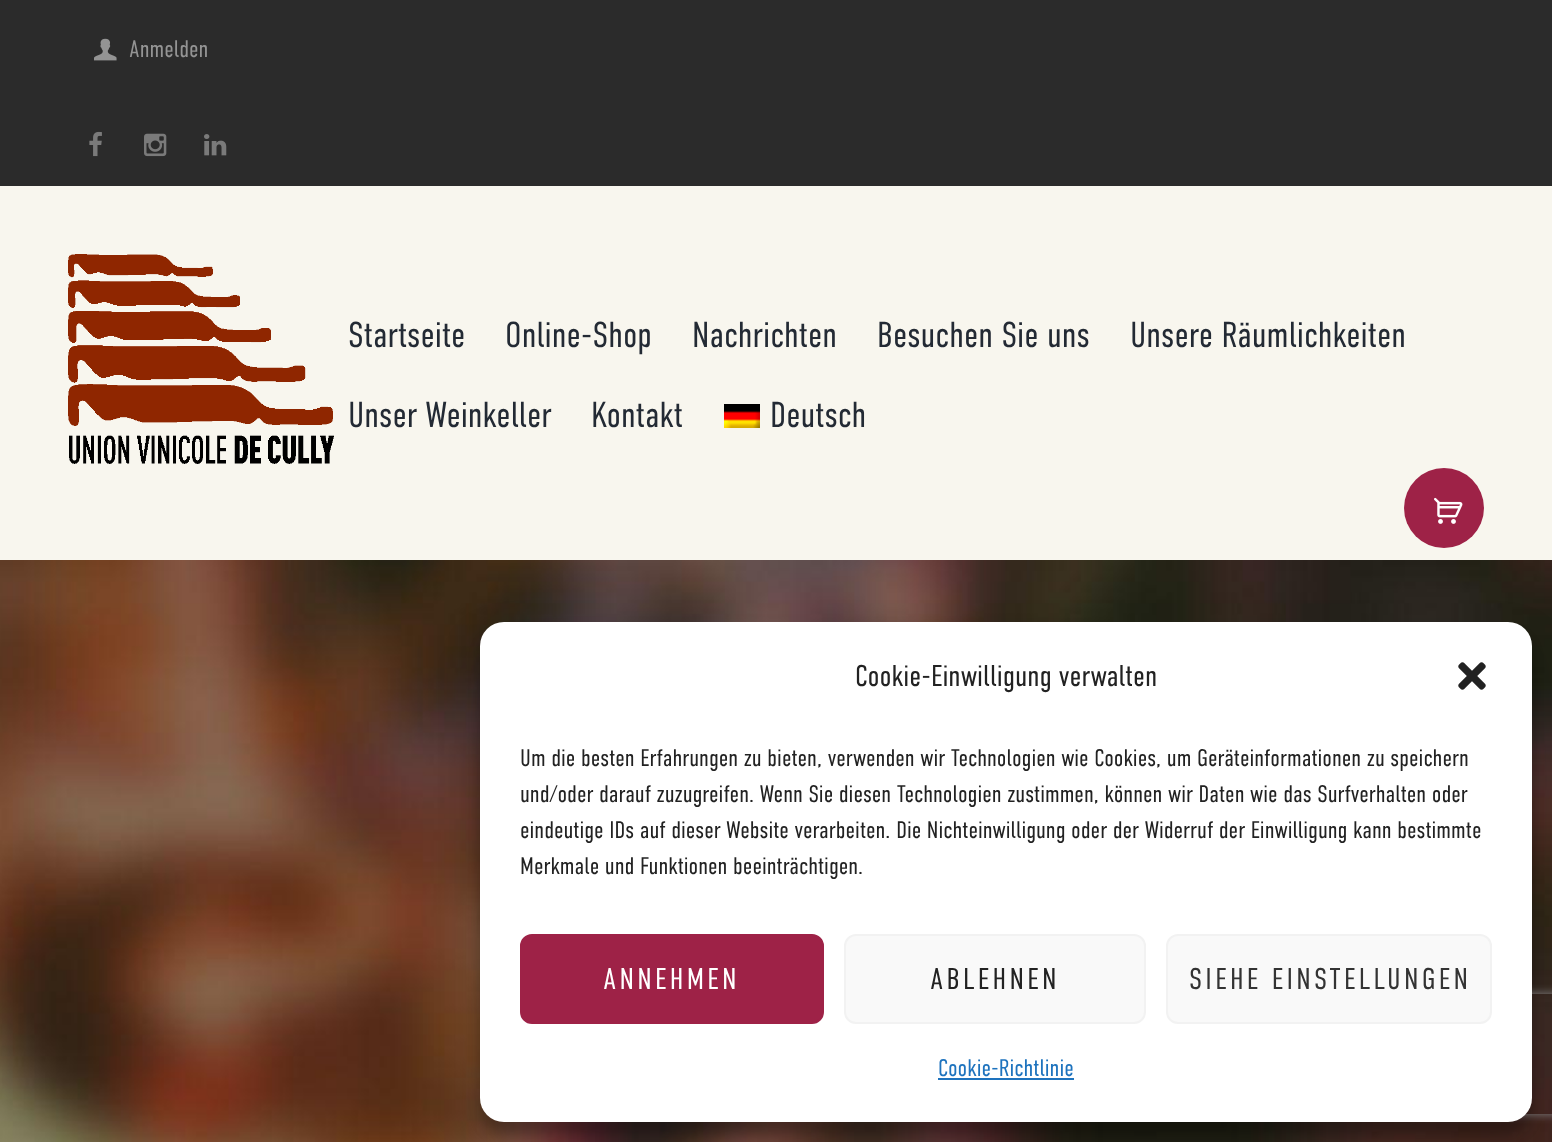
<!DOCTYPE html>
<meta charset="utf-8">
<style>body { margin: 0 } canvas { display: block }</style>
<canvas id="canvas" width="1552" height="1142"></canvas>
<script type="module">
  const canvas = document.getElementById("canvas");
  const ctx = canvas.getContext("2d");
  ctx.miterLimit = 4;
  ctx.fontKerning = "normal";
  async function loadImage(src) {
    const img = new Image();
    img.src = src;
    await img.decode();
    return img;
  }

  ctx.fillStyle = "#ffffff";
  ctx.fillRect(0, 0, 1552, 1142);
  ctx.fillStyle = "#2b2b2b";
  ctx.fillRect(0, 0, 1552, 186);
  ctx.drawImage(await loadImage("img1.png"), 94, 38, 23, 23);
  ctx.font = "300 24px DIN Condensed";
  ctx.fillStyle = "#949494";
  ctx.fillText("Anmelden", 129, 57);
  ctx.drawImage(await loadImage("img2.png"), 89, 131, 13, 26);
  ctx.drawImage(await loadImage("img3.png"), 144, 133, 23, 24);
  ctx.drawImage(await loadImage("img4.png"), 204, 134, 23, 22);
  ctx.fillStyle = "#f8f6ee";
  ctx.fillRect(0, 186, 1552, 374);
  ctx.drawImage(await loadImage("img5.png"), 68, 254, 266, 210);
  ctx.font = "300 36px DIN Condensed";
  ctx.fillStyle = "#232a34";
  ctx.fillText("Startseite", 348, 347);
  ctx.fillText("Online-Shop", 505, 347);
  ctx.fillText("Nachrichten", 692, 347);
  ctx.fillText("Besuchen Sie uns", 877, 347);
  ctx.fillText("Unsere Räumlichkeiten", 1130, 347);
  ctx.fillText("Unser Weinkeller", 348, 427);
  ctx.fillText("Kontakt", 591, 427);
  ctx.drawImage(await loadImage("img6.png"), 724, 404, 36, 24);
  ctx.fillText("Deutsch", 770, 427);
  ctx.fillStyle = "#9e2247";
  ctx.beginPath();
  ctx.arc(1444, 508, 40, 0, Math.PI * 2);
  ctx.fill();
  ctx.drawImage(await loadImage("img7.png"), 1434, 497, 29, 27);
  ctx.drawImage(await loadImage("img8.png"), 0, 560, 1552, 582);
  ctx.fillStyle = "rgba(0, 0, 0, 0.23)";
  ctx.filter = "blur(6px)";
  ctx.beginPath();
  ctx.roundRect(480, 634, 1052, 500, 24);
  ctx.fill();
  ctx.filter = "none";
  ctx.fillStyle = "rgba(0, 0, 0, 0.19)";
  ctx.filter = "blur(20px)";
  ctx.beginPath();
  ctx.roundRect(480, 642, 1052, 500, 24);
  ctx.fill();
  ctx.filter = "none";
  ctx.save();
  ctx.beginPath();
  ctx.moveTo(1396, 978);
  ctx.lineTo(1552, 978);
  ctx.lineTo(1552, 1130);
  ctx.lineTo(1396, 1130);
  ctx.closePath();
  ctx.moveTo(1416, 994);
  ctx.lineTo(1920, 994);
  ctx.bezierCurveTo(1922, 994, 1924, 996, 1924, 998);
  ctx.lineTo(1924, 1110);
  ctx.bezierCurveTo(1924, 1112, 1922, 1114, 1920, 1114);
  ctx.lineTo(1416, 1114);
  ctx.bezierCurveTo(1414, 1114, 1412, 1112, 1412, 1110);
  ctx.lineTo(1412, 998);
  ctx.bezierCurveTo(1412, 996, 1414, 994, 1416, 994);
  ctx.closePath();
  ctx.clip("evenodd");
  ctx.fillStyle = "#808080";
  ctx.filter = "blur(5px)";
  ctx.beginPath();
  ctx.roundRect(1412, 994, 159, 120, 4);
  ctx.fill();
  ctx.filter = "none";
  ctx.restore();
  ctx.fillStyle = "#ffffff";
  ctx.beginPath();
  ctx.roundRect(480, 622, 1052, 500, 24);
  ctx.fill();
  ctx.font = "300 30px DIN Condensed";
  ctx.fillStyle = "#222222";
  ctx.fillText("Cookie-Einwilligung verwalten", 855, 686);
  ctx.drawImage(await loadImage("img9.png"), 1458, 662, 28, 28);
  ctx.font = "300 24px DIN Condensed";
  ctx.fillText("Um die besten Erfahrungen zu bieten, verwenden wir Technologien wie Cookies, um Geräteinformationen zu speichern", 520, 766);
  ctx.fillText("und/oder darauf zuzugreifen. Wenn Sie diesen Technologien zustimmen, können wir Daten wie das Surfverhalten oder", 520, 802);
  ctx.fillText("eindeutige IDs auf dieser Website verarbeiten. Die Nichteinwilligung oder der Widerruf der Einwilligung kann bestimmte", 520, 838);
  ctx.fillText("Merkmale und Funktionen beeinträchtigen.", 520, 874);
  ctx.fillStyle = "#9e2247";
  ctx.beginPath();
  ctx.roundRect(521, 935, 302, 88, 11);
  ctx.fill();
  ctx.strokeStyle = "#9e2247";
  ctx.lineWidth = 2;
  ctx.stroke();
  ctx.letterSpacing = "3.25px";
  ctx.font = "300 30px DIN Condensed";
  ctx.fillStyle = "#ffffff";
  ctx.fillText("ANNEHMEN", 603, 989);
  ctx.fillStyle = "#f9f9f9";
  ctx.beginPath();
  ctx.roundRect(845, 935, 300, 88, 11);
  ctx.fill();
  ctx.strokeStyle = "#f2f2f2";
  ctx.stroke();
  ctx.fillStyle = "#222222";
  ctx.fillText("ABLEHNEN", 930, 989);
  ctx.fillStyle = "#f9f9f9";
  ctx.beginPath();
  ctx.roundRect(1167, 935, 324, 88, 11);
  ctx.fill();
  ctx.stroke();
  ctx.fillStyle = "#333333";
  ctx.fillText("SIEHE EINSTELLUNGEN", 1189, 989);
  ctx.letterSpacing = "0px";
  ctx.font = "300 24px DIN Condensed";
  ctx.fillStyle = "#1e73be";
  ctx.fillText("Cookie-Richtlinie", 938, 1076);
  ctx.fillRect(938, 1078, 136, 2);
</script>
